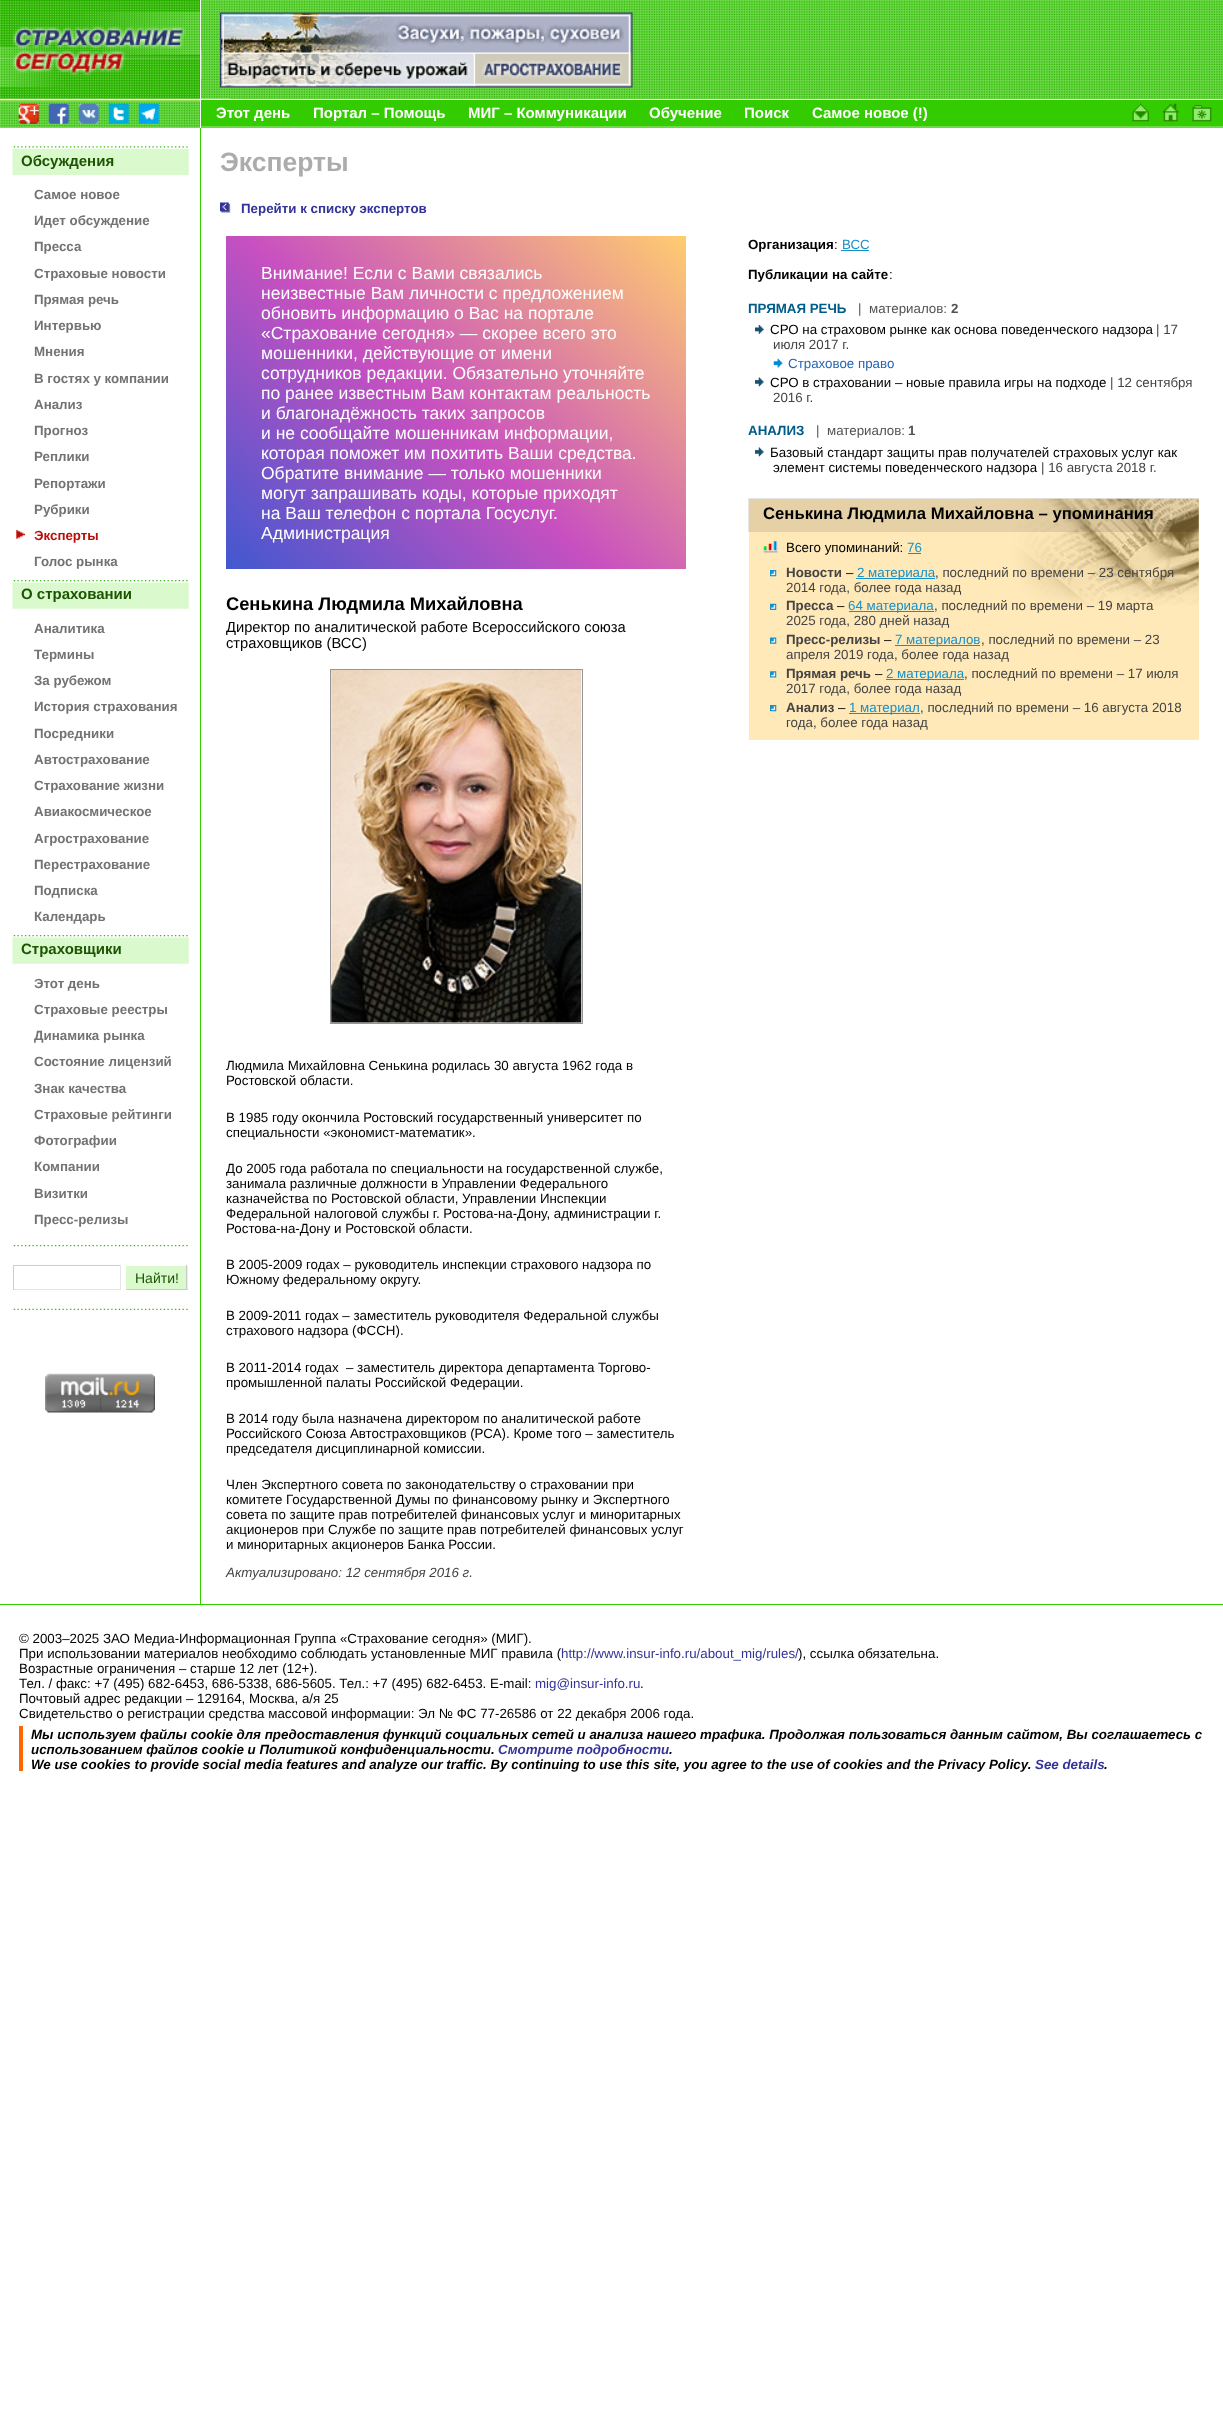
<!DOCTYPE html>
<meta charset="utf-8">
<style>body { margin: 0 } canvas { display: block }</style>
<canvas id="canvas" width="1223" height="2422"></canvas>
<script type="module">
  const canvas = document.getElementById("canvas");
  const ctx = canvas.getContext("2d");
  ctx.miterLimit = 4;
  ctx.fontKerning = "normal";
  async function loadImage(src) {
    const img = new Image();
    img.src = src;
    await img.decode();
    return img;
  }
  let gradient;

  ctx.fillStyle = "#ffffff";
  ctx.fillRect(0, 0, 1223, 2422);
  ctx.drawImage(await loadImage("img1.png"), 0, 0, 200, 59);
  ctx.drawImage(await loadImage("img2.png"), 0, 58, 200, 42);
  ctx.fillStyle = "#95d856";
  ctx.fillRect(0, 100, 200, 28);
  ctx.drawImage(await loadImage("img3.png"), 0, 101, 200, 27);
  ctx.drawImage(await loadImage("img4.png"), 18, 103, 21, 21);
  ctx.drawImage(await loadImage("img5.png"), 48, 103, 21, 21);
  ctx.drawImage(await loadImage("img6.png"), 78, 103, 21, 21);
  ctx.drawImage(await loadImage("img7.png"), 108, 103, 21, 21);
  ctx.drawImage(await loadImage("img8.png"), 138, 103, 21, 21);
  ctx.fillStyle = "#6dd949";
  ctx.fillRect(201, 0, 1022, 128);
  ctx.drawImage(await loadImage("img10.png"), 201, 0, 1022, 99);
  ctx.drawImage(await loadImage("img9.png"), 201, 50, 1, 29);
  ctx.drawImage(await loadImage("img11.png"), 220, 12, 413, 76);
  ctx.fillStyle = "#ffffff";
  ctx.fillRect(201, 99, 1022, 1);
  ctx.drawImage(await loadImage("img12.png"), 201, 98, 29, 1);
  ctx.fillStyle = "#33cc00";
  ctx.fillRect(201, 100, 1022, 26);
  ctx.font = "bold 15px Liberation Sans";
  ctx.fillStyle = "#ffffff";
  ctx.fillText("Этот день", 216, 118);
  ctx.fillText("Портал – Помощь", 313, 118);
  ctx.fillText("МИГ – Коммуникации", 468, 118);
  ctx.fillText("Обучение", 649, 118);
  ctx.fillText("Поиск", 744, 118);
  ctx.fillText("Самое новое (!)", 812, 118);
  ctx.drawImage(await loadImage("img13.png"), 1132, 103, 17, 19);
  ctx.drawImage(await loadImage("img14.png"), 1162, 103, 17, 19);
  ctx.drawImage(await loadImage("img15.png"), 1192, 105, 20, 17);
  ctx.drawImage(await loadImage("img16.png"), 12, 146, 177, 29);
  ctx.fillStyle = "#1b5502";
  ctx.fillText("Обсуждения", 21, 166);
  ctx.font = "bold 13.33px Liberation Sans";
  ctx.fillStyle = "#737373";
  ctx.fillText("Самое новое", 34, 199);
  ctx.fillText("Идет обсуждение", 34, 225);
  ctx.fillText("Пресса", 34, 251);
  ctx.fillText("Страховые новости", 34, 278);
  ctx.fillText("Прямая речь", 34, 304);
  ctx.fillText("Интервью", 34, 330);
  ctx.fillText("Мнения", 34, 356);
  ctx.fillText("В гостях у компании", 34, 383);
  ctx.fillText("Анализ", 34, 409);
  ctx.fillText("Прогноз", 34, 435);
  ctx.fillText("Реплики", 34, 461);
  ctx.fillText("Репортажи", 34, 488);
  ctx.fillText("Рубрики", 34, 514);
  ctx.drawImage(await loadImage("img17.png"), 16, 530, 10, 9);
  ctx.fillStyle = "#bb0e08";
  ctx.fillText("Эксперты", 34, 540);
  ctx.fillStyle = "#737373";
  ctx.fillText("Голос рынка", 34, 566);
  ctx.drawImage(await loadImage("img18.png"), 12, 580, 177, 29);
  ctx.font = "bold 15px Liberation Sans";
  ctx.fillStyle = "#1b5502";
  ctx.fillText("О страховании", 21, 599);
  ctx.font = "bold 13.33px Liberation Sans";
  ctx.fillStyle = "#737373";
  ctx.fillText("Аналитика", 34, 633);
  ctx.fillText("Термины", 34, 659);
  ctx.fillText("За рубежом", 34, 685);
  ctx.fillText("История страхования", 34, 711);
  ctx.fillText("Посредники", 34, 738);
  ctx.fillText("Автострахование", 34, 764);
  ctx.fillText("Страхование жизни", 34, 790);
  ctx.fillText("Авиакосмическое", 34, 816);
  ctx.fillText("Агрострахование", 34, 843);
  ctx.fillText("Перестрахование", 34, 869);
  ctx.fillText("Подписка", 34, 895);
  ctx.fillText("Календарь", 34, 921);
  ctx.drawImage(await loadImage("img18.png"), 12, 935, 177, 29);
  ctx.font = "bold 15px Liberation Sans";
  ctx.fillStyle = "#1b5502";
  ctx.fillText("Страховщики", 21, 954);
  ctx.font = "bold 13.33px Liberation Sans";
  ctx.fillStyle = "#737373";
  ctx.fillText("Этот день", 34, 988);
  ctx.fillText("Страховые реестры", 34, 1014);
  ctx.fillText("Динамика рынка", 34, 1040);
  ctx.fillText("Состояние лицензий", 34, 1066);
  ctx.fillText("Знак качества", 34, 1093);
  ctx.fillText("Страховые рейтинги", 34, 1119);
  ctx.fillText("Фотографии", 34, 1145);
  ctx.fillText("Компании", 34, 1171);
  ctx.fillText("Визитки", 34, 1198);
  ctx.fillText("Пресс-релизы", 34, 1224);
  ctx.drawImage(await loadImage("img19.png"), 13, 1245, 175, 2);
  ctx.fillStyle = "#cccccc";
  ctx.fillRect(13, 1265, 108, 1);
  ctx.fillStyle = "#e5e5e5";
  ctx.fillRect(120, 1265, 1, 25);
  ctx.fillRect(13, 1289, 108, 1);
  ctx.fillStyle = "#cccccc";
  ctx.fillRect(13, 1265, 1, 25);
  ctx.fillStyle = "#daf9cd";
  ctx.fillRect(126, 1266, 62, 23);
  ctx.fillStyle = "#cccccc";
  ctx.fillRect(186, 1265, 1, 25);
  ctx.fillRect(125, 1289, 63, 1);
  ctx.fillStyle = "#ffffff";
  ctx.fillRect(125, 1289, 1, 1);
  ctx.font = "14px Liberation Sans";
  ctx.fillStyle = "#1b5502";
  ctx.fillText("Найти!", 135, 1283);
  ctx.drawImage(await loadImage("img20.png"), 13, 1308, 175, 2);
  ctx.drawImage(await loadImage("img21.png"), 45, 1373, 110, 40);
  ctx.fillStyle = "#33cc00";
  ctx.fillRect(200, 128, 1, 1476);
  ctx.font = "bold 26.5px Liberation Sans";
  ctx.fillStyle = "#acacac";
  ctx.fillText("Эксперты", 220, 171);
  ctx.drawImage(await loadImage("img22.png"), 220, 202, 11, 11);
  ctx.font = "bold 13.33px Liberation Sans";
  ctx.fillStyle = "#333399";
  ctx.fillText("Перейти к списку экспертов", 241, 213);
  gradient = ctx.createLinearGradient(266, 606, 646, 199);
  gradient.addColorStop(0, "#4158d0");
  gradient.addColorStop(0.46, "#c850c0");
  gradient.addColorStop(1, "#ffcc70");
  ctx.fillStyle = gradient;
  ctx.fillRect(226, 236, 460, 333);
  ctx.font = "17.5px Liberation Sans";
  ctx.fillStyle = "#ffffff";
  ctx.fillText("Внимание! Если с Вами связались", 261, 279);
  ctx.fillText("неизвестные Вам личности с предложением", 261, 299);
  ctx.fillText("обновить информацию о Вас на портале", 261, 319);
  ctx.fillText("«Страхование сегодня» — скорее всего это", 261, 339);
  ctx.fillText("мошенники, действующие от имени", 261, 359);
  ctx.fillText("сотрудников редакции. Обязательно уточняйте", 261, 379);
  ctx.fillText("по ранее известным Вам контактам реальность", 261, 399);
  ctx.fillText("и благонадёжность таких запросов", 261, 419);
  ctx.fillText("и не сообщайте мошенникам информации,", 261, 439);
  ctx.fillText("которая поможет им похитить Ваши средства.", 261, 459);
  ctx.fillText("Обратите внимание — только мошенники", 261, 479);
  ctx.fillText("могут запрашивать коды, которые приходят", 261, 499);
  ctx.fillText("на Ваш телефон с портала Госуслуг.", 261, 519);
  ctx.fillText("Администрация", 261, 539);
  ctx.font = "bold 18.3px Liberation Sans";
  ctx.fillStyle = "#000000";
  ctx.fillText("Сенькина Людмила Михайловна", 226, 610);
  ctx.font = "14.7px Liberation Sans";
  ctx.fillText("Директор по аналитической работе Всероссийского союза", 226, 632);
  ctx.fillText("страховщиков (ВСС)", 226, 648);
  ctx.strokeStyle = "#969696";
  ctx.strokeRect(330.5, 669.5, 252, 354);
  ctx.drawImage(await loadImage("img23.png"), 331, 670, 251, 353);
  ctx.font = "13.33px Liberation Sans";
  ctx.fillText("Людмила Михайловна Сенькина родилась 30 августа 1962 года в", 226, 1070);
  ctx.fillText("Ростовской области.", 226, 1085);
  ctx.fillText("В 1985 году окончила Ростовский государственный университет по", 226, 1122);
  ctx.fillText("специальности «экономист-математик».", 226, 1137);
  ctx.fillText("До 2005 года работала по специальности на государственной службе,", 226, 1173);
  ctx.fillText("занимала различные должности в Управлении Федерального", 226, 1188);
  ctx.fillText("казначейства по Ростовской области, Управлении Инспекции", 226, 1203);
  ctx.fillText("Федеральной налоговой службы г. Ростова-на-Дону, администрации г.", 226, 1218);
  ctx.fillText("Ростова-на-Дону и Ростовской области.", 226, 1233);
  ctx.fillText("В 2005-2009 годах – руководитель инспекции страхового надзора по", 226, 1269);
  ctx.fillText("Южному федеральному округу.", 226, 1284);
  ctx.fillText("В 2009-2011 годах – заместитель руководителя Федеральной службы", 226, 1320);
  ctx.fillText("страхового надзора (ФССН).", 226, 1335);
  ctx.fillText("В 2011-2014 годах  – заместитель директора департамента Торгово-", 226, 1372);
  ctx.fillText("промышленной палаты Российской Федерации.", 226, 1387);
  ctx.fillText("В 2014 году была назначена директором по аналитической работе", 226, 1423);
  ctx.fillText("Российского Союза Автостраховщиков (РСА). Кроме того – заместитель", 226, 1438);
  ctx.fillText("председателя дисциплинарной комиссии.", 226, 1453);
  ctx.fillText("Член Экспертного совета по законодательству о страховании при", 226, 1489);
  ctx.fillText("комитете Государственной Думы по финансовому рынку и Экспертного", 226, 1504);
  ctx.fillText("совета по защите прав потребителей финансовых услуг и миноритарных", 226, 1519);
  ctx.fillText("акционеров при Службе по защите прав потребителей финансовых услуг", 226, 1534);
  ctx.fillText("и миноритарных акционеров Банка России.", 226, 1549);
  ctx.font = "italic 13.33px Liberation Sans";
  ctx.fillStyle = "#444444";
  ctx.fillText("Актуализировано: 12 сентября 2016 г.", 226, 1577);
  ctx.font = "bold 13.33px Liberation Sans";
  ctx.fillStyle = "#000000";
  ctx.fillText("Организация", 748, 249);
  ctx.font = "13.33px Liberation Sans";
  ctx.fillText(":", 834, 249);
  ctx.fillStyle = "#1890c8";
  ctx.fillText("ВСС", 842, 249);
  ctx.fillRect(841, 250, 28, 1);
  ctx.font = "bold 13.33px Liberation Sans";
  ctx.fillStyle = "#000000";
  ctx.fillText("Публикации на сайте", 748, 279);
  ctx.font = "13.33px Liberation Sans";
  ctx.fillText(":", 889, 279);
  ctx.font = "bold 13.33px Liberation Sans";
  ctx.fillStyle = "#005b88";
  ctx.fillText("ПРЯМАЯ РЕЧЬ", 748, 313);
  ctx.font = "13.33px Liberation Sans";
  ctx.fillStyle = "#535353";
  ctx.fillText("|", 858, 313);
  ctx.fillText("материалов:", 869, 313);
  ctx.font = "bold 13.33px Liberation Sans";
  ctx.fillText("2", 951, 313);
  ctx.drawImage(await loadImage("img24.png"), 755, 325, 9, 9);
  ctx.font = "13.33px Liberation Sans";
  ctx.fillStyle = "#000000";
  ctx.fillText("СРО на страховом рынке как основа поведенческого надзора", 770, 334);
  ctx.fillStyle = "#444444";
  ctx.fillText("| 17", 1156, 334);
  ctx.fillText("июля 2017 г.", 773, 349);
  ctx.drawImage(await loadImage("img25.png"), 773, 358, 10, 10);
  ctx.fillStyle = "#2565b3";
  ctx.fillText("Страховое право", 788, 368);
  ctx.drawImage(await loadImage("img26.png"), 755, 377, 9, 10);
  ctx.fillStyle = "#000000";
  ctx.fillText("СРО в страховании – новые правила игры на подходе", 770, 387);
  ctx.fillStyle = "#444444";
  ctx.fillText("| 12 сентября", 1110, 387);
  ctx.fillText("2016 г.", 773, 402);
  ctx.font = "bold 13.33px Liberation Sans";
  ctx.fillStyle = "#005b88";
  ctx.fillText("АНАЛИЗ", 748, 435);
  ctx.font = "13.33px Liberation Sans";
  ctx.fillStyle = "#535353";
  ctx.fillText("|", 816, 435);
  ctx.fillText("материалов:", 827, 435);
  ctx.font = "bold 13.33px Liberation Sans";
  ctx.fillText("1", 908, 435);
  ctx.drawImage(await loadImage("img26.png"), 755, 447, 9, 10);
  ctx.font = "13.33px Liberation Sans";
  ctx.fillStyle = "#000000";
  ctx.fillText("Базовый стандарт защиты прав получателей страховых услуг как", 770, 457);
  ctx.fillText("элемент системы поведенческого надзора", 773, 472);
  ctx.fillStyle = "#444444";
  ctx.fillText("| 16 августа 2018 г.", 1041, 472);
  ctx.fillStyle = "#ffe9b8";
  ctx.fillRect(749, 499, 450, 241);
  ctx.drawImage(await loadImage("img27.png"), 973, 498, 226, 108);
  ctx.fillStyle = "rgba(0, 0, 0, 0.1)";
  ctx.fillRect(748, 498, 451, 34);
  ctx.font = "bold 16.7px Liberation Sans";
  ctx.fillStyle = "#000000";
  ctx.fillText("Сенькина Людмила Михайловна – упоминания", 763, 519);
  ctx.drawImage(await loadImage("img28.png"), 763, 541, 15, 12);
  ctx.font = "13.33px Liberation Sans";
  ctx.fillText("Bсего упоминаний:", 786, 552);
  ctx.fillStyle = "#1890c8";
  ctx.fillText("76", 907, 552);
  ctx.fillRect(908, 553, 13, 1);
  ctx.drawImage(await loadImage("img29.png"), 770, 570, 7, 7);
  ctx.font = "bold 13.33px Liberation Sans";
  ctx.fillStyle = "#444444";
  ctx.fillText("Новости", 786, 577);
  ctx.font = "13.33px Liberation Sans";
  ctx.fillStyle = "#000000";
  ctx.fillText("–", 846, 577);
  ctx.fillStyle = "#1890c8";
  ctx.fillRect(856, 578, 79, 1);
  ctx.fillText("2 материала", 857, 577);
  ctx.fillStyle = "#444444";
  ctx.fillText(", последний по времени – 23 сентября", 935, 577);
  ctx.fillText("2014 года, более года назад", 786, 592);
  ctx.drawImage(await loadImage("img30.png"), 770, 603, 7, 7);
  ctx.font = "bold 13.33px Liberation Sans";
  ctx.fillText("Пресса", 786, 610);
  ctx.font = "13.33px Liberation Sans";
  ctx.fillStyle = "#000000";
  ctx.fillText("–", 837, 610);
  ctx.fillStyle = "#1890c8";
  ctx.fillRect(849, 611, 85, 1);
  ctx.fillText("64 материала", 848, 610);
  ctx.fillStyle = "#444444";
  ctx.fillText(", последний по времени – 19 марта", 934, 610);
  ctx.fillText("2025 года, 280 дней назад", 786, 625);
  ctx.drawImage(await loadImage("img31.png"), 770, 637, 7, 7);
  ctx.font = "bold 13.33px Liberation Sans";
  ctx.fillText("Пресс-релизы", 786, 644);
  ctx.font = "13.33px Liberation Sans";
  ctx.fillStyle = "#000000";
  ctx.fillText("–", 884, 644);
  ctx.fillStyle = "#1890c8";
  ctx.fillRect(895, 645, 85, 1);
  ctx.fillText("7 материалов", 895, 644);
  ctx.fillStyle = "#444444";
  ctx.fillText(", последний по времени – 23", 981, 644);
  ctx.fillText("апреля 2019 года, более года назад", 786, 659);
  ctx.drawImage(await loadImage("img32.png"), 770, 671, 7, 7);
  ctx.font = "bold 13.33px Liberation Sans";
  ctx.fillText("Прямая речь", 786, 678);
  ctx.font = "13.33px Liberation Sans";
  ctx.fillStyle = "#000000";
  ctx.fillText("–", 875, 678);
  ctx.fillStyle = "#1890c8";
  ctx.fillRect(886, 679, 78, 1);
  ctx.fillText("2 материала", 886, 678);
  ctx.fillStyle = "#444444";
  ctx.fillText(", последний по времени – 17 июля", 964, 678);
  ctx.fillText("2017 года, более года назад", 786, 693);
  ctx.drawImage(await loadImage("img29.png"), 770, 705, 7, 7);
  ctx.font = "bold 13.33px Liberation Sans";
  ctx.fillText("Анализ", 786, 712);
  ctx.font = "13.33px Liberation Sans";
  ctx.fillStyle = "#000000";
  ctx.fillText("–", 838, 712);
  ctx.fillStyle = "#1890c8";
  ctx.fillRect(849, 713, 71, 1);
  ctx.fillText("1 материал", 849, 712);
  ctx.fillStyle = "#444444";
  ctx.fillText(", последний по времени – 16 августа 2018", 920, 712);
  ctx.fillText("года, более года назад", 786, 727);
  ctx.fillStyle = "#33cc00";
  ctx.fillRect(0, 1604, 1223, 1);
  ctx.fillStyle = "#000000";
  ctx.fillText("© 2003–2025 ЗАО Медиа-Информационная Группа «Страхование сегодня» (МИГ).", 19, 1643);
  ctx.fillText("При использовании материалов необходимо соблюдать установленные МИГ правила (", 19, 1658);
  ctx.fillStyle = "#333399";
  ctx.fillText("http://www.insur-info.ru/about_mig/rules/", 561, 1658);
  ctx.fillStyle = "#000000";
  ctx.fillText("), ссылка обязательна.", 798, 1658);
  ctx.fillText("Возрастные ограничения – старше 12 лет (12+).", 19, 1673);
  ctx.fillText("Тел. / факс: +7 (495) 682-6453, 686-5338, 686-5605. Тел.: +7 (495) 682-6453. E-mail:", 19, 1688);
  ctx.fillStyle = "#333399";
  ctx.fillText("mig@insur-info.ru", 535, 1688);
  ctx.fillStyle = "#000000";
  ctx.fillText(".", 640, 1688);
  ctx.fillText("Почтовый адрес редакции – 129164, Москва, а/я 25", 19, 1703);
  ctx.fillText("Свидетельство о регистрации средства массовой", 19, 1718);
  ctx.fillText("информации: Эл № ФС 77-26586 от 22 декабря 2006 года.", 331, 1718);
  ctx.fillStyle = "#ff6600";
  ctx.fillRect(19, 1726, 4, 45);
  ctx.font = "italic bold 13.33px Liberation Sans";
  ctx.fillStyle = "#000000";
  ctx.fillText("Мы используем файлы cookie для предоставления функций социальных сетей и анализа нашего трафика. Продолжая пользоваться данным сайтом, Вы соглашаетесь с", 31, 1739);
  ctx.fillText("использованием файлов cookie и Политикой конфиденциальности.", 31, 1754);
  ctx.fillStyle = "#333399";
  ctx.fillText("Смотрите подробности", 498, 1754);
  ctx.fillStyle = "#000000";
  ctx.fillText(".", 669, 1754);
  ctx.fillText("We use cookies to provide social media features and analyze our traffic. By continuing to use this site, you agree to the use of cookies and the Privacy Policy.", 31, 1769);
  ctx.fillStyle = "#333399";
  ctx.fillText("See details", 1035, 1769);
  ctx.fillStyle = "#000000";
  ctx.fillText(".", 1104, 1769);
</script>
